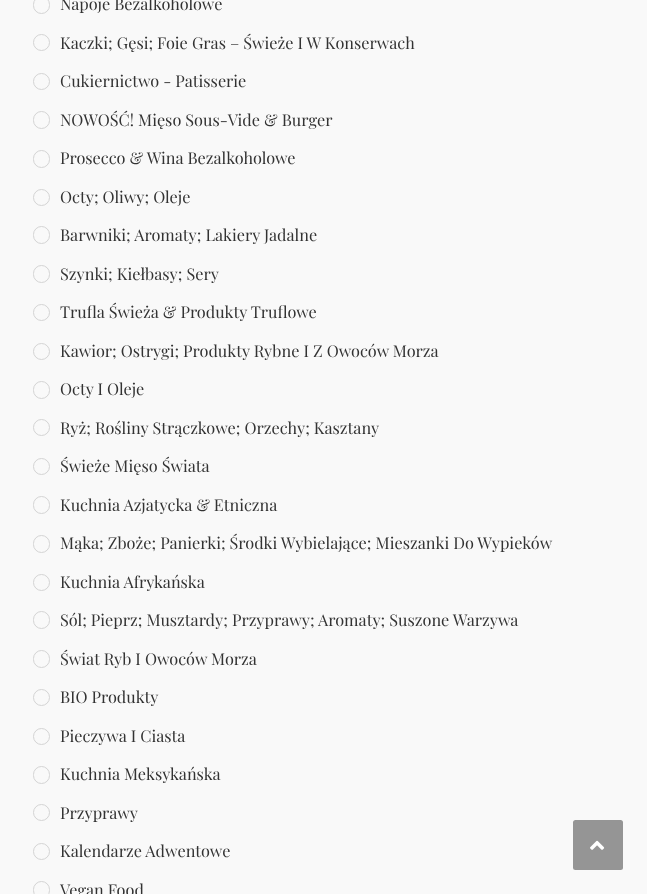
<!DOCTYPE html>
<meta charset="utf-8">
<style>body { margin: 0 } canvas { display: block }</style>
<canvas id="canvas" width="647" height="894"></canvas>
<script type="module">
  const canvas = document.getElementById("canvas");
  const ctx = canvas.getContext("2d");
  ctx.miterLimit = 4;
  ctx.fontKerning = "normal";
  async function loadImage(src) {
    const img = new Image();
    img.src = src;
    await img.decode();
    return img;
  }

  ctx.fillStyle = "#f9f9f9";
  ctx.fillRect(0, 0, 647, 894);
  ctx.beginPath();
  ctx.roundRect(33.5, -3.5, 16, 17, 8);
  ctx.strokeStyle = "#d4d4d4";
  ctx.stroke();
  ctx.font = "16.25px Playfair Display";
  ctx.fillStyle = "#333333";
  ctx.fillText("Napoje Bezalkoholowe", 60, 10);
  ctx.beginPath();
  ctx.arc(41.5, 42.5, 8, 0, Math.PI * 2);
  ctx.stroke();
  ctx.fillText("Kaczki; Gęsi; Foie Gras – Świeże I W Konserwach", 60, 49);
  ctx.beginPath();
  ctx.arc(41.5, 81.5, 8, 0, Math.PI * 2);
  ctx.stroke();
  ctx.fillText("Cukiernictwo - Patisserie", 60, 87);
  ctx.beginPath();
  ctx.roundRect(33.5, 111.5, 16, 17, 8);
  ctx.stroke();
  ctx.fillText("NOWOŚĆ! Mięso Sous-Vide & Burger", 60, 126);
  ctx.beginPath();
  ctx.roundRect(33.5, 150.5, 16, 17, 8);
  ctx.stroke();
  ctx.fillText("Prosecco & Wina Bezalkoholowe", 60, 164);
  ctx.beginPath();
  ctx.arc(41.5, 197.5, 8, 0, Math.PI * 2);
  ctx.stroke();
  ctx.fillText("Octy; Oliwy; Oleje", 60, 203);
  ctx.beginPath();
  ctx.roundRect(33.5, 226.5, 16, 17, 8);
  ctx.stroke();
  ctx.fillText("Barwniki; Aromaty; Lakiery Jadalne", 60, 241);
  ctx.beginPath();
  ctx.roundRect(33.5, 265.5, 16, 17, 8);
  ctx.stroke();
  ctx.fillText("Szynki; Kiełbasy; Sery", 60, 280);
  ctx.beginPath();
  ctx.arc(41.5, 312.5, 8, 0, Math.PI * 2);
  ctx.stroke();
  ctx.fillText("Trufla Świeża & Produkty Truflowe", 60, 318);
  ctx.beginPath();
  ctx.arc(41.5, 351.5, 8, 0, Math.PI * 2);
  ctx.stroke();
  ctx.fillText("Kawior; Ostrygi; Produkty Rybne I Z Owoców Morza", 60, 357);
  ctx.beginPath();
  ctx.roundRect(33.5, 381.5, 16, 17, 8);
  ctx.stroke();
  ctx.fillText("Octy I Oleje", 60, 395);
  ctx.beginPath();
  ctx.arc(41.5, 427.5, 8, 0, Math.PI * 2);
  ctx.stroke();
  ctx.fillText("Ryż; Rośliny Strączkowe; Orzechy; Kasztany", 60, 434);
  ctx.beginPath();
  ctx.arc(41.5, 466.5, 8, 0, Math.PI * 2);
  ctx.stroke();
  ctx.fillText("Świeże Mięso Świata", 60, 472);
  ctx.beginPath();
  ctx.roundRect(33.5, 496.5, 16, 17, 8);
  ctx.stroke();
  ctx.fillText("Kuchnia Azjatycka & Etniczna", 60, 511);
  ctx.beginPath();
  ctx.roundRect(33.5, 535.5, 16, 17, 8);
  ctx.stroke();
  ctx.fillText("Mąka; Zboże; Panierki; Środki Wybielające; Mieszanki Do Wypieków", 60, 549);
  ctx.beginPath();
  ctx.arc(41.5, 582.5, 8, 0, Math.PI * 2);
  ctx.stroke();
  ctx.fillText("Kuchnia Afrykańska", 60, 588);
  ctx.beginPath();
  ctx.roundRect(33.5, 611.5, 16, 17, 8);
  ctx.stroke();
  ctx.fillText("Sól; Pieprz; Musztardy; Przyprawy; Aromaty; Suszone Warzywa", 60, 626);
  ctx.beginPath();
  ctx.roundRect(33.5, 650.5, 16, 17, 8);
  ctx.stroke();
  ctx.fillText("Świat Ryb I Owoców Morza", 60, 665);
  ctx.beginPath();
  ctx.arc(41.5, 697.5, 8, 0, Math.PI * 2);
  ctx.stroke();
  ctx.fillText("BIO Produkty", 60, 703);
  ctx.beginPath();
  ctx.arc(41.5, 736.5, 8, 0, Math.PI * 2);
  ctx.stroke();
  ctx.fillText("Pieczywa I Ciasta", 60, 742);
  ctx.beginPath();
  ctx.roundRect(33.5, 766.5, 16, 17, 8);
  ctx.stroke();
  ctx.fillText("Kuchnia Meksykańska", 60, 780);
  ctx.beginPath();
  ctx.arc(41.5, 812.5, 8, 0, Math.PI * 2);
  ctx.stroke();
  ctx.fillText("Przyprawy", 60, 819);
  ctx.beginPath();
  ctx.arc(41.5, 851.5, 8, 0, Math.PI * 2);
  ctx.stroke();
  ctx.fillText("Kalendarze Adwentowe", 60, 857);
  ctx.beginPath();
  ctx.roundRect(33.5, 881.5, 16, 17, 8);
  ctx.stroke();
  ctx.fillText("Vegan Food", 60, 896);
  ctx.fillStyle = "#959595";
  ctx.beginPath();
  ctx.roundRect(573, 820, 50, 50, 2.5);
  ctx.fill();
  ctx.drawImage(await loadImage("img1.png"), 590, 840, 15, 10);
</script>
